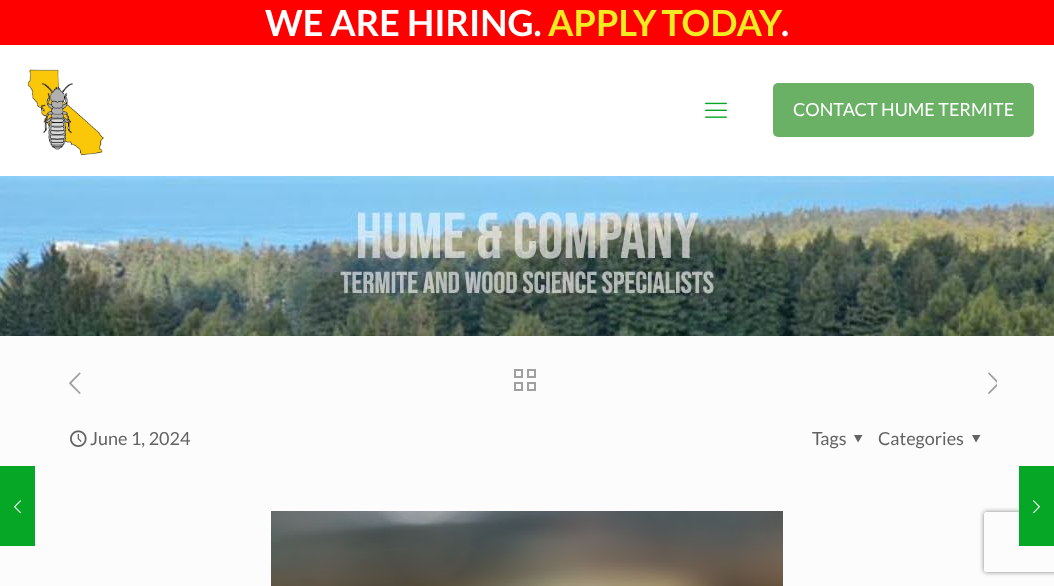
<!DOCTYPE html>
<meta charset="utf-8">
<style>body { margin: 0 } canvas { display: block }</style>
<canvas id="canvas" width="1054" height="586"></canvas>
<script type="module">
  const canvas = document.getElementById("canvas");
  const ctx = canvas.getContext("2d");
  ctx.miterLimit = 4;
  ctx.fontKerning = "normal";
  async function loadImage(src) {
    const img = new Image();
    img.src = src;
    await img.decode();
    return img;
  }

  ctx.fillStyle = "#fcfcfc";
  ctx.fillRect(0, 0, 1054, 586);
  ctx.fillStyle = "#ff0000";
  ctx.fillRect(0, 0, 1054, 45);
  ctx.font = "bold 36px Lato";
  ctx.fillStyle = "#ffffff";
  ctx.fillText("WE ARE HIRING.", 265, 36);
  ctx.wordSpacing = "-2px";
  ctx.fillStyle = "#f2eb21";
  ctx.fillText("APPLY TODAY", 548, 36);
  ctx.wordSpacing = "0px";
  ctx.fillStyle = "#ffffff";
  ctx.fillText(".", 781, 36);
  ctx.fillRect(0, 45, 1054, 131);
  ctx.drawImage(await loadImage("img1.png"), 27, 69, 77, 87);
  ctx.drawImage(await loadImage("img2.png"), 705, 102, 22, 16);
  ctx.fillStyle = "#6ab165";
  ctx.beginPath();
  ctx.roundRect(773, 83, 261, 54, 5);
  ctx.fill();
  ctx.font = "18px Lato";
  ctx.fillStyle = "#ffffff";
  ctx.fillText("CONTACT HUME TERMITE", 793, 116);
  ctx.drawImage(await loadImage("img3.png"), 0, 176, 1054, 160);
  ctx.drawImage(await loadImage("img4.png"), 69, 372, 12, 22);
  ctx.drawImage(await loadImage("img5.png"), 514, 369, 22, 22);
  ctx.drawImage(await loadImage("img6.png"), 988, 372, 9, 22);
  ctx.drawImage(await loadImage("img7.png"), 70, 430, 17, 17);
  ctx.fillStyle = "#636363";
  ctx.fillText("June 1, 2024", 90, 445);
  ctx.fillText("Tags", 812, 445);
  ctx.beginPath();
  ctx.moveTo(862.5, 435);
  ctx.lineTo(858, 442.5);
  ctx.lineTo(854, 435);
  ctx.closePath();
  ctx.fill();
  ctx.fillText("Categories", 878, 445);
  ctx.beginPath();
  ctx.moveTo(980.5, 435);
  ctx.lineTo(976, 442.5);
  ctx.lineTo(972, 435);
  ctx.closePath();
  ctx.fill();
  ctx.drawImage(await loadImage("img8.png"), 271, 511, 512, 75);
  ctx.fillStyle = "#06a726";
  ctx.fillRect(0, 466, 35, 80);
  ctx.drawImage(await loadImage("img9.png"), 14, 500, 7, 14);
  ctx.save();
  ctx.beginPath();
  ctx.moveTo(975, 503);
  ctx.lineTo(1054, 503);
  ctx.lineTo(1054, 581);
  ctx.lineTo(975, 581);
  ctx.closePath();
  ctx.moveTo(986, 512);
  ctx.lineTo(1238, 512);
  ctx.bezierCurveTo(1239, 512, 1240, 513, 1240, 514);
  ctx.lineTo(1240, 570);
  ctx.bezierCurveTo(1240, 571, 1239, 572, 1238, 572);
  ctx.lineTo(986, 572);
  ctx.bezierCurveTo(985, 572, 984, 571, 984, 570);
  ctx.lineTo(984, 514);
  ctx.bezierCurveTo(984, 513, 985, 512, 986, 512);
  ctx.closePath();
  ctx.clip("evenodd");
  ctx.fillStyle = "#808080";
  ctx.filter = "blur(2.5px)";
  ctx.beginPath();
  ctx.roundRect(984, 512, 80, 60, 2);
  ctx.fill();
  ctx.filter = "none";
  ctx.restore();
  ctx.fillRect(1019, 466, 35, 80);
  ctx.drawImage(await loadImage("img10.png"), 1033, 500, 7, 14);
</script>
